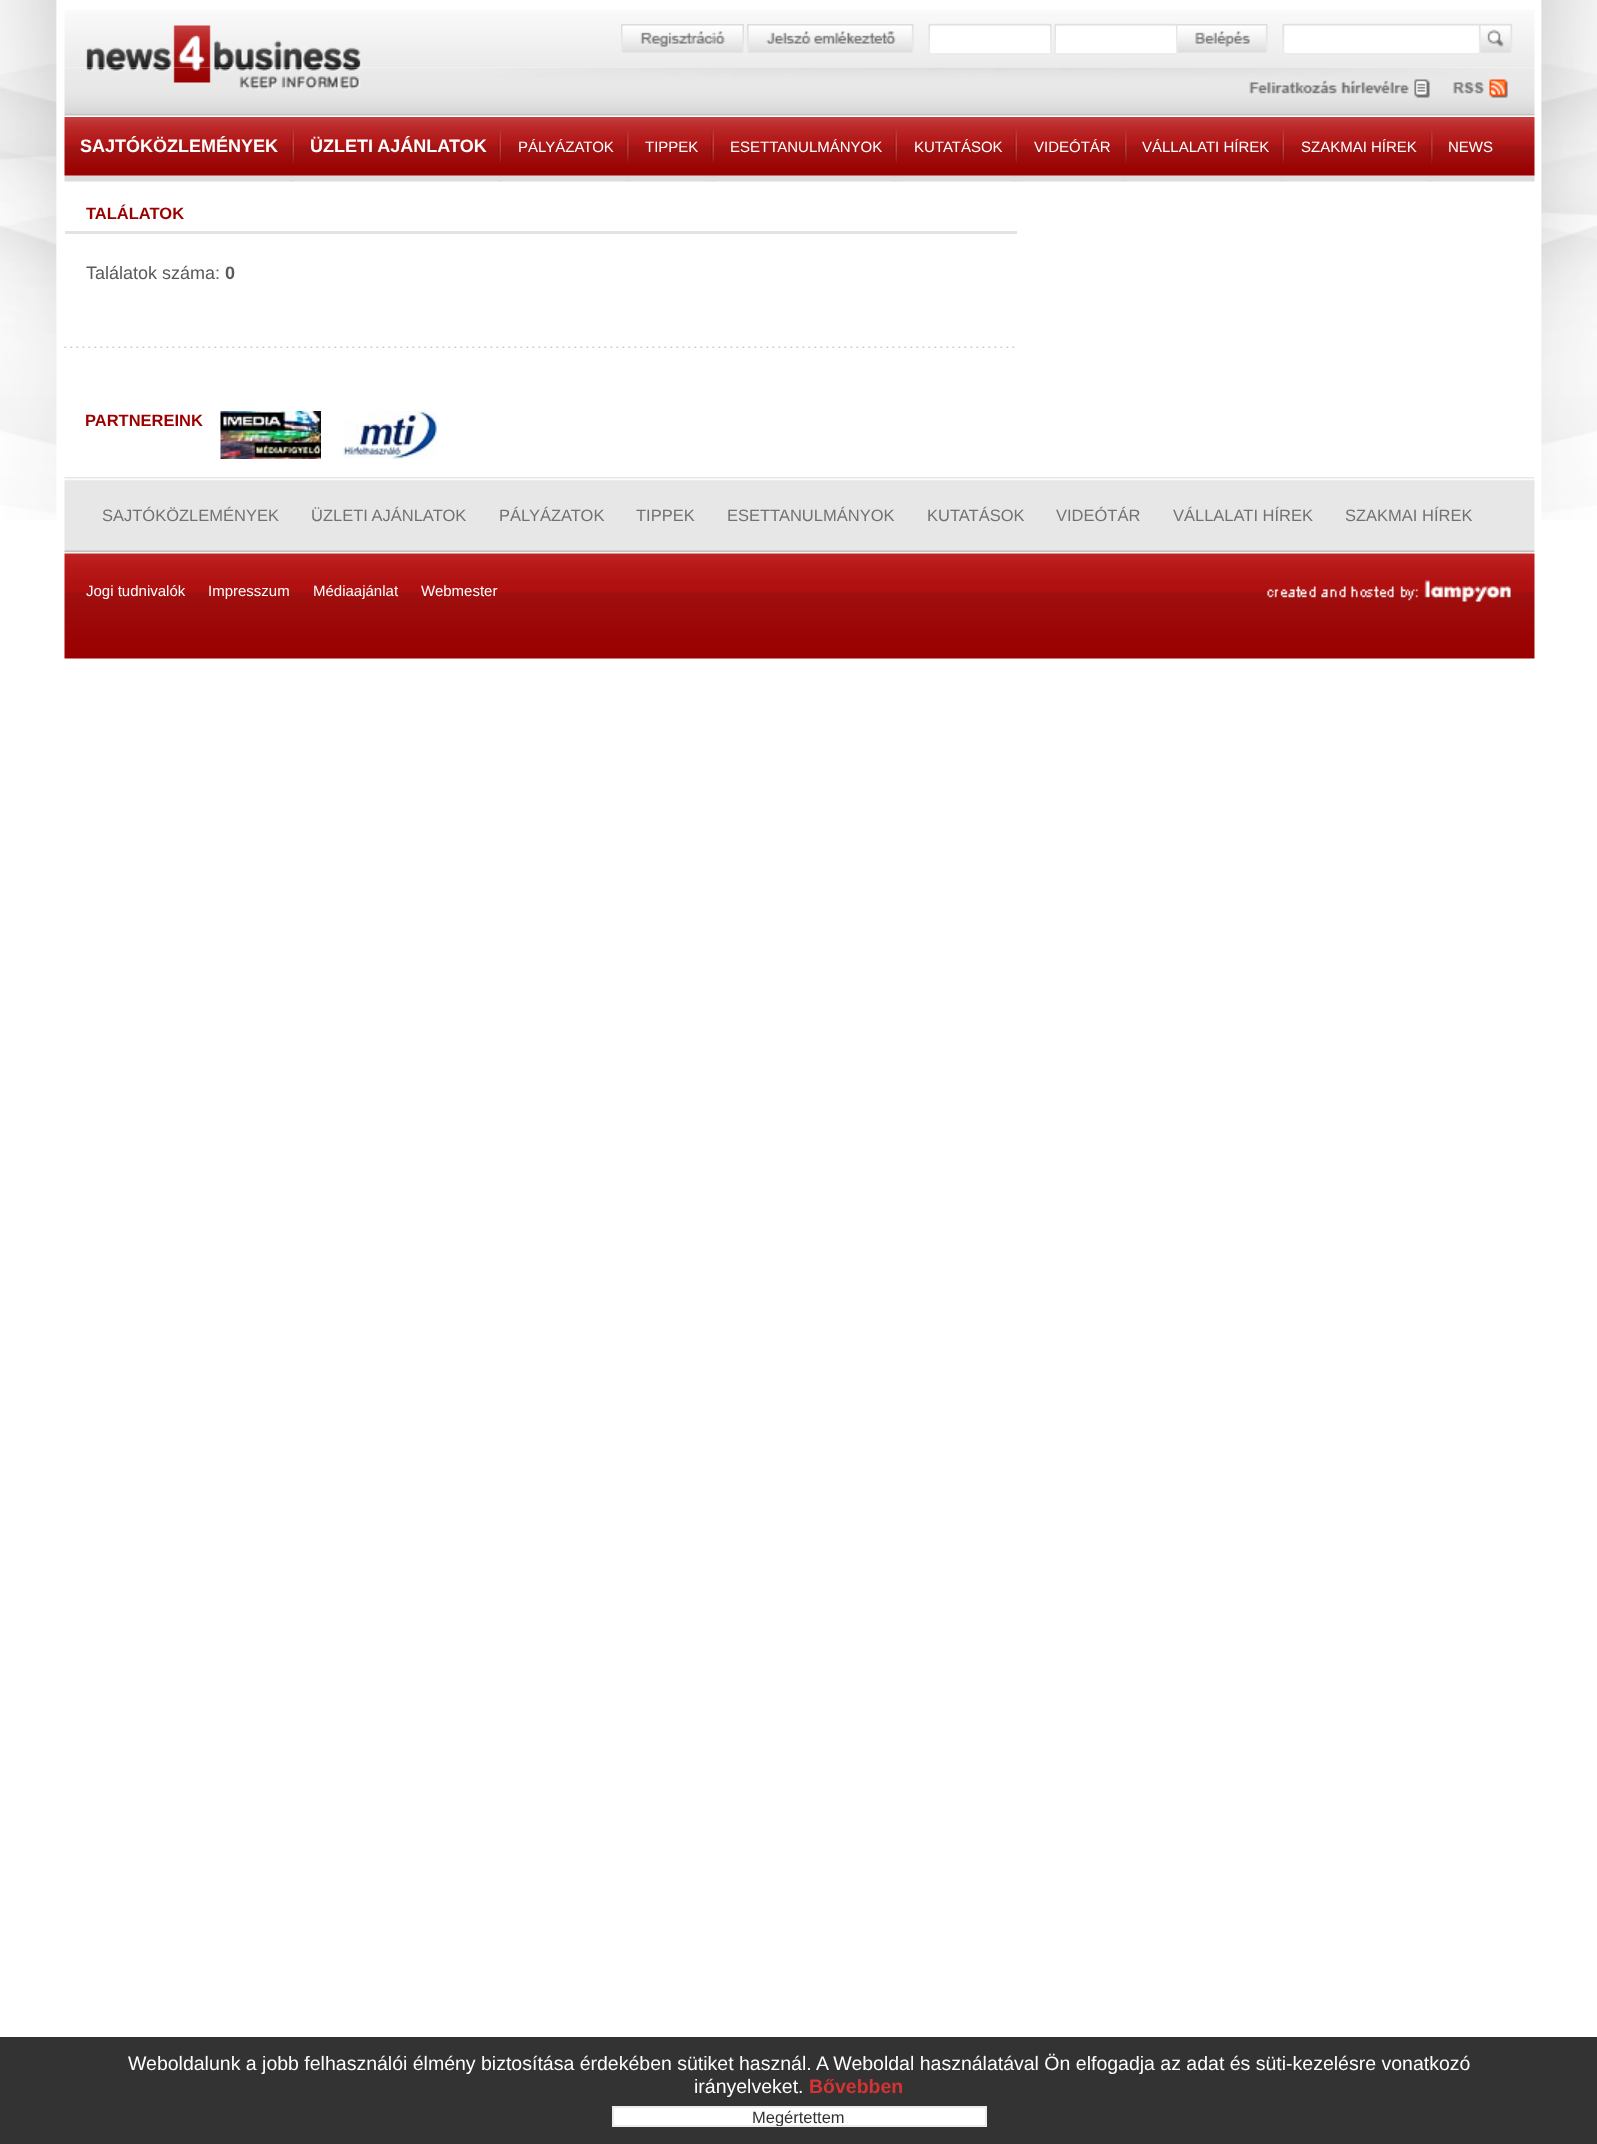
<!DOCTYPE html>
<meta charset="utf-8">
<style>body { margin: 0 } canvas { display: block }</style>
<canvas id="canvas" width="1597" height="2144"></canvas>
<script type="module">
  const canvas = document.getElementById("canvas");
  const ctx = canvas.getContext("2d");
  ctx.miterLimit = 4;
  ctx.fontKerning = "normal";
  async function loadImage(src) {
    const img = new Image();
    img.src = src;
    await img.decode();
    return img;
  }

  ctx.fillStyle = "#ffffff";
  ctx.fillRect(0, 0, 1597, 2144);
  ctx.drawImage(await loadImage("img1.png"), 0, 0, 1597, 520);
  ctx.drawImage(await loadImage("img2.png"), 64, 10, 1471, 58);
  ctx.drawImage(await loadImage("img3.png"), 621, 24, 123, 29);
  ctx.drawImage(await loadImage("img4.png"), 747, 24, 167, 29);
  ctx.fillRect(930, 27, 120, 26);
  ctx.fillRect(1056, 27, 120, 26);
  ctx.drawImage(await loadImage("img5.png"), 1177, 24, 91, 29);
  ctx.fillRect(1286, 52, 192, 1);
  ctx.drawImage(await loadImage("img6.png"), 64, 67, 1471, 49);
  ctx.drawImage(await loadImage("img7.png"), 64, 117, 1471, 65);
  ctx.font = "bold 18px Liberation Sans";
  ctx.fillText("SAJTÓKÖZLEMÉNYEK", 80, 152);
  ctx.drawImage(await loadImage("img8.png"), 291, 129, 3, 53);
  ctx.fillText("ÜZLETI AJÁNLATOK", 310, 152);
  ctx.drawImage(await loadImage("img8.png"), 498, 129, 3, 53);
  ctx.font = "15px Liberation Sans";
  ctx.fillText("PÁLYÁZATOK", 518, 152);
  ctx.drawImage(await loadImage("img9.png"), 625, 130, 4, 52);
  ctx.fillText("TIPPEK", 645, 152);
  ctx.drawImage(await loadImage("img8.png"), 711, 129, 3, 53);
  ctx.fillText("ESETTANULMÁNYOK", 730, 152);
  ctx.drawImage(await loadImage("img10.png"), 894, 129, 3, 53);
  ctx.fillText("KUTATÁSOK", 914, 152);
  ctx.drawImage(await loadImage("img10.png"), 1014, 129, 3, 53);
  ctx.fillText("VIDEÓTÁR", 1034, 152);
  ctx.drawImage(await loadImage("img9.png"), 1123, 130, 4, 52);
  ctx.fillText("VÁLLALATI HÍREK", 1142, 152);
  ctx.drawImage(await loadImage("img10.png"), 1281, 129, 3, 53);
  ctx.fillText("SZAKMAI HÍREK", 1301, 152);
  ctx.drawImage(await loadImage("img9.png"), 1429, 130, 4, 52);
  ctx.fillText("NEWS", 1448, 152);
  ctx.fillStyle = "#e3e3e3";
  ctx.fillRect(65, 231, 952, 3);
  ctx.font = "bold 16.5px Liberation Sans";
  ctx.fillStyle = "#9a0000";
  ctx.fillText("TALÁLATOK", 86, 219);
  ctx.font = "18px Liberation Sans";
  ctx.fillStyle = "#5a5a5a";
  ctx.fillText("Találatok száma:", 86, 279);
  ctx.font = "bold 18px Liberation Sans";
  ctx.fillText("0", 225, 279);
  ctx.drawImage(await loadImage("img11.png"), 64, 346, 951, 2);
  ctx.font = "bold 16.5px Liberation Sans";
  ctx.fillStyle = "#9a0000";
  ctx.fillText("PARTNEREINK", 85, 426);
  ctx.drawImage(await loadImage("img12.png"), 220, 411, 101, 48);
  ctx.drawImage(await loadImage("img13.png"), 343, 411, 94, 48);
  ctx.drawImage(await loadImage("img14.png"), 64, 477, 1471, 76);
  ctx.font = "16.5px Liberation Sans";
  ctx.fillStyle = "#727272";
  ctx.fillText("SAJTÓKÖZLEMÉNYEK", 102, 521);
  ctx.fillText("ÜZLETI AJÁNLATOK", 311, 521);
  ctx.fillText("PÁLYÁZATOK", 499, 521);
  ctx.fillText("TIPPEK", 636, 521);
  ctx.fillText("ESETTANULMÁNYOK", 727, 521);
  ctx.fillText("KUTATÁSOK", 927, 521);
  ctx.fillText("VIDEÓTÁR", 1056, 521);
  ctx.fillText("VÁLLALATI HÍREK", 1173, 521);
  ctx.fillText("SZAKMAI HÍREK", 1345, 521);
  ctx.drawImage(await loadImage("img15.png"), 64, 553, 1471, 106);
  ctx.font = "15px Liberation Sans";
  ctx.fillStyle = "#ffffff";
  ctx.fillText("Jogi tudnivalók", 86, 596);
  ctx.fillText("Impresszum", 208, 596);
  ctx.fillText("Médiaajánlat", 313, 596);
  ctx.fillText("Webmester", 421, 596);
  ctx.fillStyle = "#333333";
  ctx.fillRect(0, 2037, 1597, 107);
  ctx.font = "19.5px Liberation Sans";
  ctx.fillStyle = "#ffffff";
  ctx.fillText("Weboldalunk a jobb felhasználói élmény biztosítása érdekében sütiket használ. A Weboldal használatával Ön elfogadja az adat és süti-kezelésre vonatkozó", 128, 2070);
  ctx.fillText("irányelveket.", 694, 2093);
  ctx.font = "bold 19.5px Liberation Sans";
  ctx.fillStyle = "#d53333";
  ctx.fillText("Bővebben", 809, 2093);
  ctx.fillStyle = "#ffffff";
  ctx.beginPath();
  ctx.rect(613, 2107, 373, 19);
  ctx.fill();
  ctx.strokeStyle = "#ececec";
  ctx.lineWidth = 2;
  ctx.stroke();
  ctx.save();
  ctx.beginPath();
  ctx.rect(614, 2108, 372, 18);
  ctx.clip();
  ctx.font = "16.5px Liberation Sans";
  ctx.fillStyle = "#333333";
  ctx.fillText("Megértettem", 752, 2123);
  ctx.restore();
</script>
